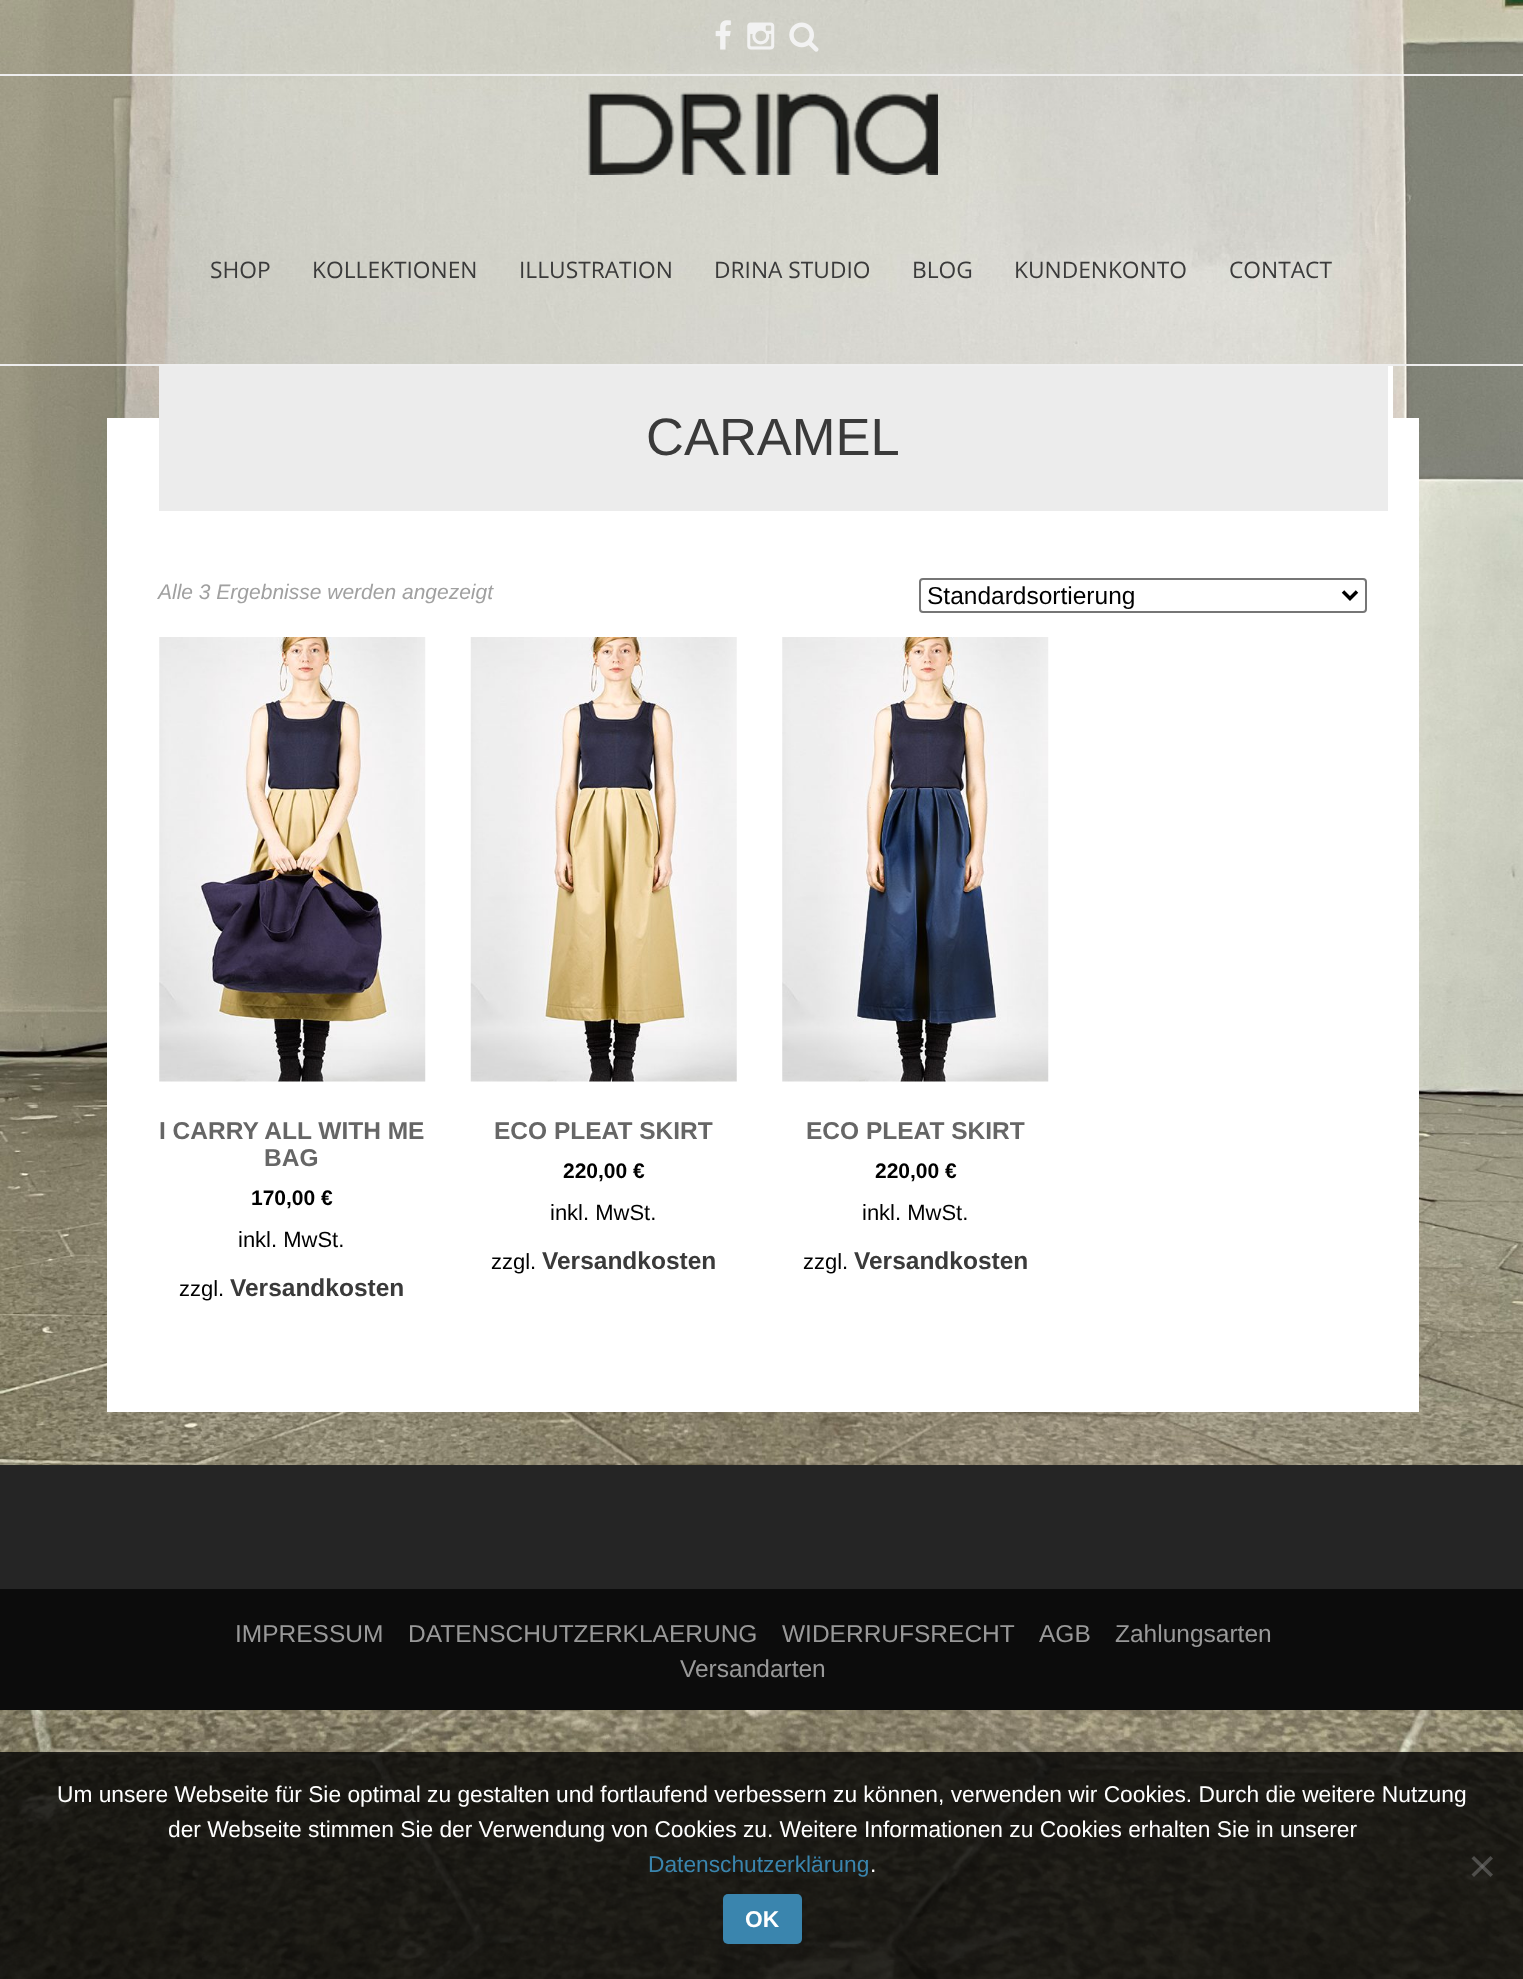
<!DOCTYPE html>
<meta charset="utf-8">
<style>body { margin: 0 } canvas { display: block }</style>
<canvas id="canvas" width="1523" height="1979"></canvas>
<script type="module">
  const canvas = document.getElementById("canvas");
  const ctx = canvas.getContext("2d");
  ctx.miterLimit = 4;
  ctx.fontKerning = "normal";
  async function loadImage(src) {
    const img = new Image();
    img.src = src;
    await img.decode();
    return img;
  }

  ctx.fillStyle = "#ffffff";
  ctx.fillRect(0, 0, 1523, 1979);
  ctx.drawImage(await loadImage("img1.png"), 0, 0, 1523, 1979);
  ctx.fillStyle = "#eeeeee";
  ctx.fillRect(0, 74, 1523, 2);
  ctx.drawImage(await loadImage("img2.png"), 715, 20, 16, 30);
  ctx.drawImage(await loadImage("img3.png"), 747, 22, 28, 28);
  ctx.drawImage(await loadImage("img4.png"), 789, 22, 30, 30);
  ctx.fillRect(0, 364, 1523, 2);
  ctx.drawImage(await loadImage("img5.png"), 588, 92, 350, 83);
  ctx.font = "22.75px Open Sans";
  ctx.fillStyle = "#3a3a3a";
  ctx.fillText("SHOP", 210, 278);
  ctx.fillText("KOLLEKTIONEN", 312, 278);
  ctx.fillText("ILLUSTRATION", 519, 278);
  ctx.fillText("DRINA STUDIO", 714, 278);
  ctx.fillText("BLOG", 912, 278);
  ctx.fillText("KUNDENKONTO", 1014, 278);
  ctx.fillText("CONTACT", 1229, 278);
  ctx.fillStyle = "#ffffff";
  ctx.fillRect(107, 418, 1312, 994);
  ctx.fillStyle = "#ececec";
  ctx.fillRect(159, 366, 1229, 145);
  ctx.fillStyle = "#ffffff";
  ctx.fillRect(1388, 366, 5, 52);
  ctx.font = "52.5px Liberation Sans";
  ctx.fillStyle = "#3a3a3a";
  ctx.fillText("CARAMEL", 646, 455);
  ctx.font = "italic 21px Liberation Sans";
  ctx.fillStyle = "#a0a0a0";
  ctx.fillText("Alle 3 Ergebnisse werden angezeigt", 158, 599);
  ctx.beginPath();
  ctx.roundRect(920, 579, 446, 33, 3);
  ctx.strokeStyle = "#767676";
  ctx.lineWidth = 2;
  ctx.stroke();
  ctx.beginPath();
  ctx.moveTo(1343, 591.5);
  ctx.lineTo(1350, 598.5);
  ctx.lineTo(1357, 591.5);
  ctx.strokeStyle = "#000000";
  ctx.lineWidth = 3.5;
  ctx.stroke();
  ctx.font = "24.5px Liberation Sans";
  ctx.fillStyle = "#000000";
  ctx.fillText("Standardsortierung", 927, 604);
  ctx.drawImage(await loadImage("img6.png"), 159, 637, 267, 445);
  ctx.font = "bold 24.5px Liberation Sans";
  ctx.fillStyle = "#666666";
  ctx.fillText("I CARRY ALL WITH ME", 159, 1139);
  ctx.fillText("BAG", 264, 1166);
  ctx.font = "bold 21px Liberation Sans";
  ctx.fillStyle = "#000000";
  ctx.fillText("170,00 €", 251, 1205);
  ctx.font = "22px Liberation Sans";
  ctx.fillText("inkl. MwSt.", 238, 1247);
  ctx.fillText("zzgl.", 179, 1296);
  ctx.font = "bold 24.5px Liberation Sans";
  ctx.fillStyle = "#3a3a3a";
  ctx.fillText("Versandkosten", 230, 1296);
  ctx.drawImage(await loadImage("img7.png"), 470, 637, 267, 445);
  ctx.fillStyle = "#666666";
  ctx.fillText("ECO PLEAT SKIRT", 494, 1139);
  ctx.font = "bold 21px Liberation Sans";
  ctx.fillStyle = "#000000";
  ctx.fillText("220,00 €", 563, 1178);
  ctx.font = "22px Liberation Sans";
  ctx.fillText("inkl. MwSt.", 550, 1220);
  ctx.fillText("zzgl.", 491, 1269);
  ctx.font = "bold 24.5px Liberation Sans";
  ctx.fillStyle = "#3a3a3a";
  ctx.fillText("Versandkosten", 542, 1269);
  ctx.drawImage(await loadImage("img8.png"), 782, 637, 267, 445);
  ctx.fillStyle = "#666666";
  ctx.fillText("ECO PLEAT SKIRT", 806, 1139);
  ctx.font = "bold 21px Liberation Sans";
  ctx.fillStyle = "#000000";
  ctx.fillText("220,00 €", 875, 1178);
  ctx.font = "22px Liberation Sans";
  ctx.fillText("inkl. MwSt.", 862, 1220);
  ctx.fillText("zzgl.", 803, 1269);
  ctx.font = "bold 24.5px Liberation Sans";
  ctx.fillStyle = "#3a3a3a";
  ctx.fillText("Versandkosten", 854, 1269);
  ctx.fillStyle = "#252525";
  ctx.fillRect(0, 1465, 1523, 124);
  ctx.fillStyle = "#0c0c0c";
  ctx.fillRect(0, 1589, 1523, 121);
  ctx.font = "24.5px Liberation Sans";
  ctx.fillStyle = "#999999";
  ctx.fillText("IMPRESSUM", 235, 1642);
  ctx.fillText("DATENSCHUTZERKLAERUNG", 408, 1642);
  ctx.fillText("WIDERRUFSRECHT", 782, 1642);
  ctx.fillText("AGB", 1039, 1642);
  ctx.fillText("Zahlungsarten", 1115, 1642);
  ctx.fillText("Versandarten", 680, 1677);
  ctx.fillStyle = "rgba(0, 0, 0, 0.8)";
  ctx.fillRect(0, 1752, 1523, 227);
  ctx.font = "22.75px Liberation Sans";
  ctx.fillStyle = "#ffffff";
  ctx.fillText("Um unsere Webseite für Sie optimal zu gestalten und fortlaufend verbessern zu können, verwenden wir Cookies. Durch die weitere Nutzung", 57, 1802);
  ctx.fillText("der Webseite stimmen Sie der Verwendung von Cookies zu. Weitere Informationen zu Cookies erhalten Sie in unserer", 168, 1837);
  ctx.fillStyle = "#3a85ae";
  ctx.fillText("Datenschutzerklärung", 648, 1872);
  ctx.fillStyle = "#ffffff";
  ctx.fillText(".", 870, 1872);
  ctx.fillStyle = "rgba(128, 128, 128, 0.5)";
  ctx.beginPath();
  ctx.moveTo(1490.5, 1856);
  ctx.lineTo(1493, 1858.5);
  ctx.lineTo(1474, 1877);
  ctx.lineTo(1471.5, 1874.5);
  ctx.closePath();
  ctx.fill();
  ctx.beginPath();
  ctx.moveTo(1471.5, 1858.5);
  ctx.lineTo(1474, 1856);
  ctx.lineTo(1493, 1874.5);
  ctx.lineTo(1490.5, 1877);
  ctx.closePath();
  ctx.fill();
  ctx.fillStyle = "#3a85ae";
  ctx.beginPath();
  ctx.roundRect(723, 1894, 79, 50, 5);
  ctx.fill();
  ctx.font = "bold 22.75px Liberation Sans";
  ctx.fillStyle = "#ffffff";
  ctx.fillText("OK", 745, 1927);
</script>
